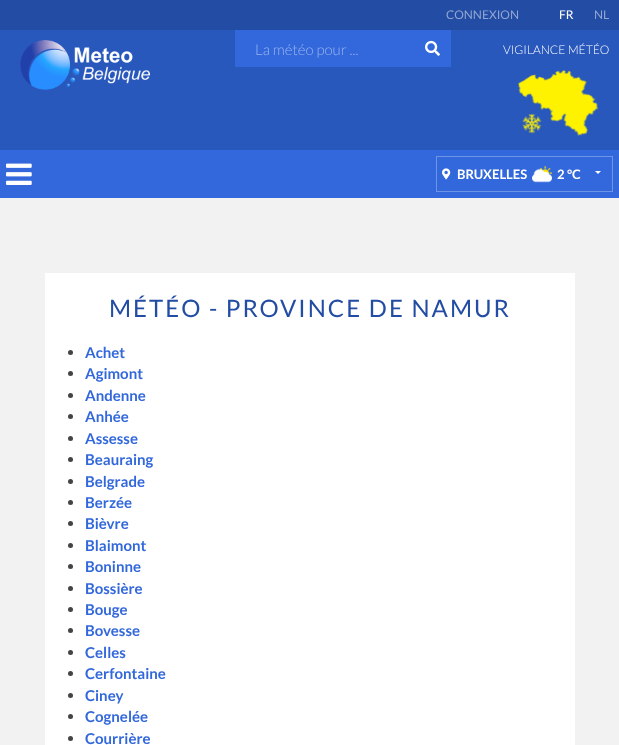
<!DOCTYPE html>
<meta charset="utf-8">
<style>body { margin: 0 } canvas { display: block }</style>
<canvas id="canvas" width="619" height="745"></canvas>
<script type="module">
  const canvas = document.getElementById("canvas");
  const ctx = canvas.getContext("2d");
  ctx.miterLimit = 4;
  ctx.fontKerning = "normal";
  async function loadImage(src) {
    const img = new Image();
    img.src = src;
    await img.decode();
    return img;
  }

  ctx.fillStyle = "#f2f2f2";
  ctx.fillRect(0, 0, 619, 745);
  ctx.fillStyle = "#234ca4";
  ctx.fillRect(0, 0, 619, 30);
  ctx.font = "12px Lato";
  ctx.fillStyle = "#91a6d2";
  ctx.fillText("CONNEXION", 446, 19);
  ctx.fillStyle = "#ffffff";
  ctx.fillText("FR", 559, 19);
  ctx.fillStyle = "#91a6d2";
  ctx.fillText("NL", 594, 19);
  ctx.fillStyle = "#2958bd";
  ctx.fillRect(0, 30, 619, 120);
  ctx.drawImage(await loadImage("img1.png"), 20, 40, 130, 50);
  ctx.fillStyle = "#3268db";
  ctx.fillRect(235, 30, 216, 37);
  ctx.font = "300 15px Lato";
  ctx.fillStyle = "#99b4ed";
  ctx.fillText("La météo pour ...", 255, 55);
  ctx.drawImage(await loadImage("img2.png"), 425, 40, 15, 16);
  ctx.font = "300 12px Lato";
  ctx.fillStyle = "#ffffff";
  ctx.fillText("VIGILANCE MÉTÉO", 503, 54);
  ctx.drawImage(await loadImage("img3.png"), 518, 70, 80, 66);
  ctx.fillStyle = "#3268db";
  ctx.fillRect(0, 150, 619, 48);
  ctx.drawImage(await loadImage("img4.png"), 6, 163, 26, 22);
  ctx.strokeStyle = "#6e94e5";
  ctx.strokeRect(436.5, 156.5, 176, 35);
  ctx.drawImage(await loadImage("img5.png"), 442, 168, 9, 12);
  ctx.font = "bold 13px Lato";
  ctx.fillStyle = "#ffffff";
  ctx.fillText("BRUXELLES", 457, 179);
  ctx.drawImage(await loadImage("img6.png"), 532, 165, 20, 18);
  ctx.fillText("2 °C", 557, 179);
  ctx.beginPath();
  ctx.moveTo(595, 171);
  ctx.lineTo(601, 171);
  ctx.lineTo(598, 174);
  ctx.closePath();
  ctx.fill();
  ctx.fillRect(45, 273, 530, 472);
  ctx.letterSpacing = "2px";
  ctx.font = "24px Lato";
  ctx.fillStyle = "#234ca4";
  ctx.fillText("MÉTÉO - PROVINCE DE NAMUR", 109, 317);
  ctx.fillStyle = "#444444";
  ctx.beginPath();
  ctx.arc(70.5, 352.5, 2.5, 0, Math.PI * 2);
  ctx.fill();
  ctx.letterSpacing = "0px";
  ctx.font = "bold 15px Lato";
  ctx.fillStyle = "#3268db";
  ctx.fillText("Achet", 85, 358);
  ctx.fillStyle = "#444444";
  ctx.beginPath();
  ctx.arc(70.5, 373.5, 2.5, 0, Math.PI * 2);
  ctx.fill();
  ctx.fillStyle = "#3268db";
  ctx.fillText("Agimont", 85, 379);
  ctx.fillStyle = "#444444";
  ctx.beginPath();
  ctx.arc(70.5, 395.5, 2.5, 0, Math.PI * 2);
  ctx.fill();
  ctx.fillStyle = "#3268db";
  ctx.fillText("Andenne", 85, 401);
  ctx.fillStyle = "#444444";
  ctx.beginPath();
  ctx.arc(70.5, 416.5, 2.5, 0, Math.PI * 2);
  ctx.fill();
  ctx.fillStyle = "#3268db";
  ctx.fillText("Anhée", 85, 422);
  ctx.fillStyle = "#444444";
  ctx.beginPath();
  ctx.arc(70.5, 438.5, 2.5, 0, Math.PI * 2);
  ctx.fill();
  ctx.fillStyle = "#3268db";
  ctx.fillText("Assesse", 85, 444);
  ctx.fillStyle = "#444444";
  ctx.beginPath();
  ctx.arc(70.5, 459.5, 2.5, 0, Math.PI * 2);
  ctx.fill();
  ctx.fillStyle = "#3268db";
  ctx.fillText("Beauraing", 85, 465);
  ctx.fillStyle = "#444444";
  ctx.beginPath();
  ctx.arc(70.5, 481.5, 2.5, 0, Math.PI * 2);
  ctx.fill();
  ctx.fillStyle = "#3268db";
  ctx.fillText("Belgrade", 85, 487);
  ctx.fillStyle = "#444444";
  ctx.beginPath();
  ctx.arc(70.5, 502.5, 2.5, 0, Math.PI * 2);
  ctx.fill();
  ctx.fillStyle = "#3268db";
  ctx.fillText("Berzée", 85, 508);
  ctx.fillStyle = "#444444";
  ctx.beginPath();
  ctx.arc(70.5, 523.5, 2.5, 0, Math.PI * 2);
  ctx.fill();
  ctx.fillStyle = "#3268db";
  ctx.fillText("Bièvre", 85, 529);
  ctx.fillStyle = "#444444";
  ctx.beginPath();
  ctx.arc(70.5, 545.5, 2.5, 0, Math.PI * 2);
  ctx.fill();
  ctx.fillStyle = "#3268db";
  ctx.fillText("Blaimont", 85, 551);
  ctx.fillStyle = "#444444";
  ctx.beginPath();
  ctx.arc(70.5, 566.5, 2.5, 0, Math.PI * 2);
  ctx.fill();
  ctx.fillStyle = "#3268db";
  ctx.fillText("Boninne", 85, 572);
  ctx.fillStyle = "#444444";
  ctx.beginPath();
  ctx.arc(70.5, 588.5, 2.5, 0, Math.PI * 2);
  ctx.fill();
  ctx.fillStyle = "#3268db";
  ctx.fillText("Bossière", 85, 594);
  ctx.fillStyle = "#444444";
  ctx.beginPath();
  ctx.arc(70.5, 609.5, 2.5, 0, Math.PI * 2);
  ctx.fill();
  ctx.fillStyle = "#3268db";
  ctx.fillText("Bouge", 85, 615);
  ctx.fillStyle = "#444444";
  ctx.beginPath();
  ctx.arc(70.5, 630.5, 2.5, 0, Math.PI * 2);
  ctx.fill();
  ctx.fillStyle = "#3268db";
  ctx.fillText("Bovesse", 85, 636);
  ctx.fillStyle = "#444444";
  ctx.beginPath();
  ctx.arc(70.5, 652.5, 2.5, 0, Math.PI * 2);
  ctx.fill();
  ctx.fillStyle = "#3268db";
  ctx.fillText("Celles", 85, 658);
  ctx.fillStyle = "#444444";
  ctx.beginPath();
  ctx.arc(70.5, 673.5, 2.5, 0, Math.PI * 2);
  ctx.fill();
  ctx.fillStyle = "#3268db";
  ctx.fillText("Cerfontaine", 85, 679);
  ctx.fillStyle = "#444444";
  ctx.beginPath();
  ctx.arc(70.5, 695.5, 2.5, 0, Math.PI * 2);
  ctx.fill();
  ctx.fillStyle = "#3268db";
  ctx.fillText("Ciney", 85, 701);
  ctx.fillStyle = "#444444";
  ctx.beginPath();
  ctx.arc(70.5, 716.5, 2.5, 0, Math.PI * 2);
  ctx.fill();
  ctx.fillStyle = "#3268db";
  ctx.fillText("Cognelée", 85, 722);
  ctx.fillStyle = "#444444";
  ctx.beginPath();
  ctx.arc(70.5, 738.5, 2.5, 0, Math.PI * 2);
  ctx.fill();
  ctx.fillStyle = "#3268db";
  ctx.fillText("Courrière", 85, 744);
</script>
